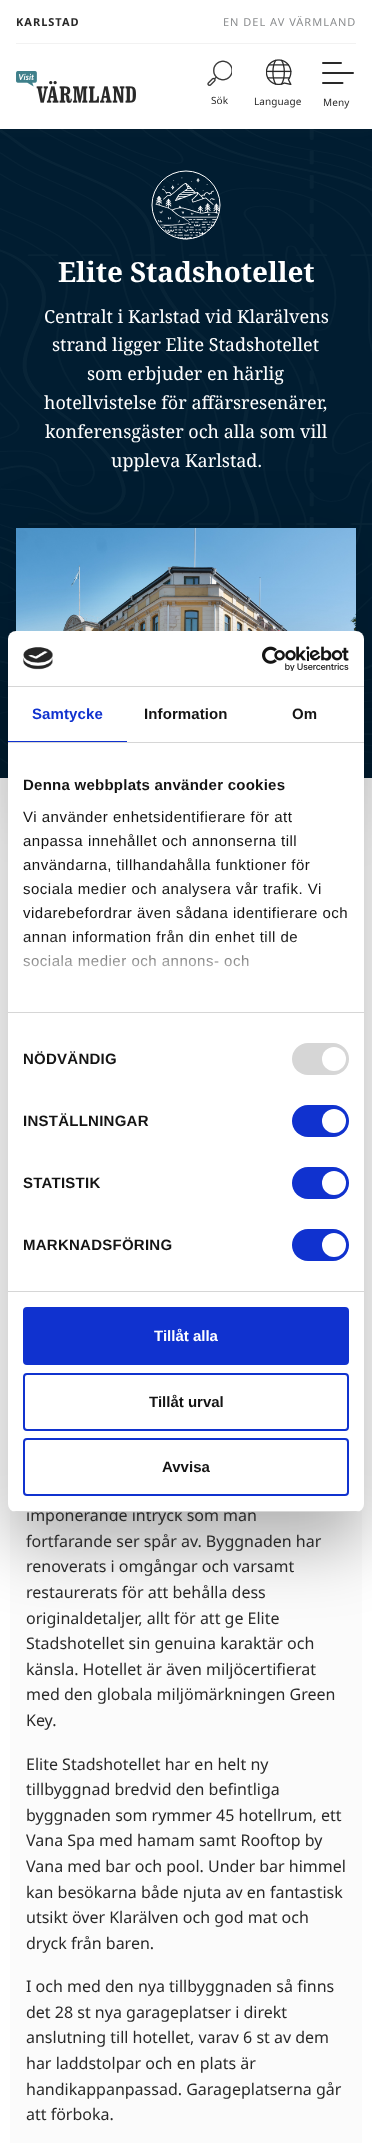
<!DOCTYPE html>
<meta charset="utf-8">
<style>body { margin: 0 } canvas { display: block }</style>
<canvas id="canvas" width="372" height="2143"></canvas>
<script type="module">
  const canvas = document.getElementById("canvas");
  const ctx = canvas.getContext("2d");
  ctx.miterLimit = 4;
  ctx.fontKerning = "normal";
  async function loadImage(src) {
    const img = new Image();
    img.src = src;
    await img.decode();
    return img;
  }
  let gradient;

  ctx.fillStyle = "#ffffff";
  ctx.fillRect(0, 0, 372, 2143);
  ctx.fillStyle = "#011d31";
  ctx.fillRect(0, 129, 372, 649);
  ctx.drawImage(await loadImage("img5.png"), 151, 170, 70, 70);
  ctx.font = "bold 27.75px Noto Serif";
  ctx.fillStyle = "#ffffff";
  ctx.fillText("Elite Stadshotellet", 58, 282);
  ctx.font = "18px Noto Serif";
  ctx.fillText("Centralt i Karlstad vid Klarälvens", 44, 323);
  ctx.fillText("strand ligger Elite Stadshotellet", 52, 351);
  ctx.fillText("som erbjuder en härlig", 87, 380);
  ctx.fillText("hotellvistelse för affärsresenärer,", 44, 409);
  ctx.fillText("konferensgäster och alla som vill", 45, 438);
  ctx.fillText("uppleva Karlstad.", 111, 467);
  ctx.drawImage(await loadImage("img4.png"), 0, 129, 372, 635);
  ctx.fillStyle = "rgba(68, 68, 68, 0.09)";
  ctx.filter = "blur(6px)";
  ctx.beginPath();
  ctx.rect(0, 0, 372, 129);
  ctx.fill();
  ctx.filter = "none";
  ctx.fillStyle = "#ffffff";
  ctx.fillRect(0, 0, 372, 129);
  ctx.fillStyle = "#f2f2f2";
  ctx.fillRect(16, 43, 340, 1);
  ctx.letterSpacing = "1px";
  ctx.font = "bold 11px Noto Sans";
  ctx.fillStyle = "#292929";
  ctx.fillText("KARLSTAD", 16, 26);
  ctx.font = "11px Noto Sans";
  ctx.fillStyle = "#8a8c8e";
  ctx.fillText("EN DEL AV VÄRMLAND", 223, 26);
  ctx.drawImage(await loadImage("img1.png"), 16, 71, 120, 32);
  ctx.drawImage(await loadImage("img2.png"), 207, 60, 25, 26);
  ctx.letterSpacing = "0.1px";
  ctx.font = "10px Noto Sans";
  ctx.fillStyle = "#292929";
  ctx.fillText("Sök", 211, 104);
  ctx.drawImage(await loadImage("img3.png"), 266, 59, 26, 26);
  ctx.fillText("Language", 254, 105);
  ctx.beginPath();
  ctx.moveTo(323, 63);
  ctx.lineTo(341, 63);
  ctx.moveTo(323, 73);
  ctx.lineTo(353, 73);
  ctx.moveTo(323, 83);
  ctx.lineTo(342.5, 83);
  ctx.strokeStyle = "#292929";
  ctx.lineWidth = 2;
  ctx.lineCap = "round";
  ctx.stroke();
  ctx.fillText("Meny", 323, 106);
  ctx.fillStyle = "rgba(0, 0, 0, 0.1)";
  ctx.filter = "blur(30px)";
  ctx.beginPath();
  ctx.rect(21, 528, 340, 290);
  ctx.fill();
  ctx.filter = "none";
  ctx.drawImage(await loadImage("img6.png"), 16, 528, 340, 103);
  ctx.fillStyle = "#fbfbfb";
  ctx.fillRect(10, 1509, 352, 634);
  ctx.fillStyle = "rgba(0, 0, 0, 0.3)";
  ctx.filter = "blur(34px)";
  ctx.beginPath();
  ctx.roundRect(8, 663, 356, 881, 8);
  ctx.fill();
  ctx.filter = "none";
  ctx.letterSpacing = "0px";
  ctx.font = "16px Noto Sans";
  ctx.fillStyle = "#292929";
  ctx.fillText("imponerande intryck som man", 26, 1521);
  ctx.fillStyle = "#ffffff";
  ctx.beginPath();
  ctx.roundRect(8, 631, 356, 881, 8);
  ctx.fill();
  ctx.fillStyle = "#d6d6d6";
  ctx.fillRect(8, 686, 356, 1);
  ctx.drawImage(await loadImage("img7.png"), 23, 647, 30, 23);
  ctx.drawImage(await loadImage("img8.png"), 262, 646, 87, 25);
  ctx.fillRect(8, 742, 356, 1);
  ctx.fillStyle = "#1032cf";
  ctx.fillRect(8, 741, 119, 1);
  ctx.letterSpacing = "0.1px";
  ctx.font = "bold 15px Liberation Sans";
  ctx.fillText("Samtycke", 32, 719);
  ctx.fillStyle = "#141414";
  ctx.fillText("Information", 144, 719);
  ctx.fillText("Om", 292, 719);
  ctx.fillStyle = "#d6d6d6";
  ctx.fillRect(8, 1012, 356, 1);
  ctx.letterSpacing = "0.25px";
  ctx.fillStyle = "#141414";
  ctx.fillText("Denna webbplats använder cookies", 23, 790);
  ctx.letterSpacing = "0.5px";
  ctx.font = "15px Liberation Sans";
  ctx.fillText("Vi använder enhetsidentifierare för att", 23, 822);
  ctx.fillText("anpassa innehållet och annonserna till", 23, 846);
  ctx.fillText("användarna, tillhandahålla funktioner för", 23, 870);
  ctx.fillText("sociala medier och analysera vår trafik. Vi", 23, 894);
  ctx.fillText("vidarebefordrar även sådana identifierare och", 23, 918);
  ctx.fillText("annan information från din enhet till de", 23, 942);
  ctx.fillText("sociala medier och annons- och", 23, 966);
  gradient = ctx.createLinearGradient(180, 1012, 180, 937);
  gradient.addColorStop(0, "#ffffff");
  gradient.addColorStop(0.5, "rgba(255, 255, 255, 0.8)");
  gradient.addColorStop(1, "rgba(255, 255, 255, 0)");
  ctx.fillStyle = gradient;
  ctx.fillRect(23, 938, 274, 29);
  ctx.fillStyle = "#d6d6d6";
  ctx.fillRect(8, 1291, 356, 1);
  ctx.letterSpacing = "0.25px";
  ctx.font = "bold 15px Liberation Sans";
  ctx.fillStyle = "#141414";
  ctx.fillText("NÖDVÄNDIG", 23, 1064);
  ctx.fillStyle = "#d6d6d6";
  ctx.beginPath();
  ctx.roundRect(292, 1043, 57, 32, 16);
  ctx.fill();
  ctx.fillStyle = "#ffffff";
  ctx.beginPath();
  ctx.arc(334, 1059, 12, 0, Math.PI * 2);
  ctx.fill();
  ctx.fillStyle = "#141414";
  ctx.fillText("INSTÄLLNINGAR", 23, 1126);
  ctx.fillStyle = "#1032cf";
  ctx.beginPath();
  ctx.roundRect(292, 1105, 57, 32, 16);
  ctx.fill();
  ctx.fillStyle = "#ffffff";
  ctx.beginPath();
  ctx.arc(334, 1121, 12, 0, Math.PI * 2);
  ctx.fill();
  ctx.fillStyle = "#141414";
  ctx.fillText("STATISTIK", 23, 1188);
  ctx.fillStyle = "#1032cf";
  ctx.beginPath();
  ctx.roundRect(292, 1167, 57, 32, 16);
  ctx.fill();
  ctx.fillStyle = "#ffffff";
  ctx.beginPath();
  ctx.arc(334, 1183, 12, 0, Math.PI * 2);
  ctx.fill();
  ctx.fillStyle = "#141414";
  ctx.fillText("MARKNADSFÖRING", 23, 1250);
  ctx.fillStyle = "#1032cf";
  ctx.beginPath();
  ctx.roundRect(292, 1229, 57, 32, 16);
  ctx.fill();
  ctx.fillStyle = "#ffffff";
  ctx.beginPath();
  ctx.arc(334, 1245, 12, 0, Math.PI * 2);
  ctx.fill();
  ctx.save();
  ctx.beginPath();
  ctx.roundRect(8, 631, 356, 881, 8);
  ctx.clip();
  ctx.fillStyle = "#d6d6d6";
  ctx.fillRect(8, 1511, 356, 1);
  ctx.restore();
  ctx.fillStyle = "#1032cf";
  ctx.beginPath();
  ctx.roundRect(24, 1308, 324, 56, 3);
  ctx.fill();
  ctx.strokeStyle = "#1032cf";
  ctx.stroke();
  ctx.letterSpacing = "0px";
  ctx.fillStyle = "#ffffff";
  ctx.fillText("Tillåt alla", 154, 1341);
  ctx.beginPath();
  ctx.roundRect(24, 1374, 324, 56, 3);
  ctx.stroke();
  ctx.fillStyle = "#141414";
  ctx.fillText("Tillåt urval", 149, 1407);
  ctx.beginPath();
  ctx.roundRect(24, 1439, 324, 56, 3);
  ctx.stroke();
  ctx.fillText("Avvisa", 162, 1472);
  ctx.font = "16px Noto Sans";
  ctx.fillStyle = "#292929";
  ctx.fillText("fortfarande ser spår av. Byggnaden har", 26, 1547);
  ctx.fillText("renoverats i omgångar och varsamt", 26, 1572);
  ctx.fillText("restaurerats för att behålla dess", 26, 1598);
  ctx.fillText("originaldetaljer, allt för att ge Elite", 26, 1624);
  ctx.fillText("Stadshotellet sin genuina karaktär och", 26, 1649);
  ctx.fillText("känsla. Hotellet är även miljöcertifierat", 26, 1675);
  ctx.fillText("med den globala miljömärkningen Green", 26, 1700);
  ctx.fillText("Key.", 26, 1726);
  ctx.fillText("Elite Stadshotellet har en helt ny", 26, 1770);
  ctx.fillText("tillbyggnad bredvid den befintliga", 26, 1795);
  ctx.fillText("byggnaden som rymmer 45 hotellrum, ett", 26, 1821);
  ctx.fillText("Vana Spa med hamam samt Rooftop by", 26, 1846);
  ctx.fillText("Vana med bar och pool. Under bar himmel", 26, 1872);
  ctx.fillText("kan besökarna både njuta av en fantastisk", 26, 1898);
  ctx.fillText("utsikt över Klarälven och god mat och", 26, 1923);
  ctx.fillText("dryck från baren.", 26, 1949);
  ctx.fillText("I och med den nya tillbyggnaden så finns", 26, 1992);
  ctx.fillText("det 28 st nya garageplatser i direkt", 26, 2018);
  ctx.fillText("anslutning till hotellet, varav 6 st av dem", 26, 2043);
  ctx.fillText("har laddstolpar och en plats är", 26, 2069);
  ctx.fillText("handikappanpassad. Garageplatserna går", 26, 2095);
  ctx.fillText("att förboka.", 26, 2120);
</script>
